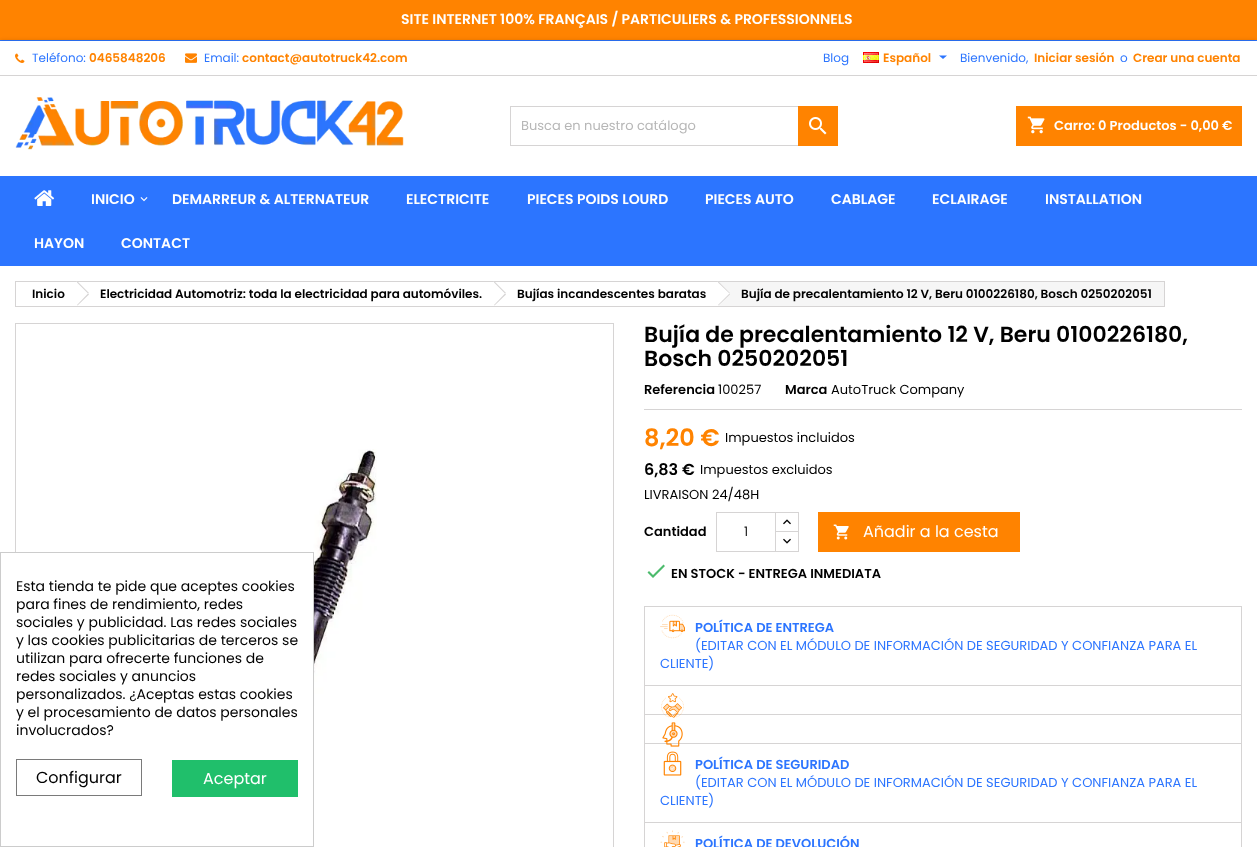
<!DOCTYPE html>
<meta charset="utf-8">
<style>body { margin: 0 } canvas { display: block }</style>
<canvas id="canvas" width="1257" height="847"></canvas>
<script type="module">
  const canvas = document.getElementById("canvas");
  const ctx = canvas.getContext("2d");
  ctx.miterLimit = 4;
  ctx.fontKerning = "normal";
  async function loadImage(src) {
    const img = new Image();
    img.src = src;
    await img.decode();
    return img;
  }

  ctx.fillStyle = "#ff8300";
  ctx.fillRect(0, 0, 1257, 847);
  ctx.fillStyle = "#2c75ff";
  ctx.fillRect(0, 40, 1257, 1);
  ctx.font = "600 14px Poppins";
  ctx.fillStyle = "#ffffff";
  ctx.fillText("SITE INTERNET 100% FRANÇAIS / PARTICULIERS & PROFESSIONNELS", 401, 24);
  ctx.fillStyle = "rgba(0, 0, 0, 0.2)";
  ctx.filter = "blur(2px)";
  ctx.beginPath();
  ctx.rect(0, 41, 1257, 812);
  ctx.fill();
  ctx.filter = "none";
  ctx.fillStyle = "#ffffff";
  ctx.fillRect(0, 41, 1257, 806);
  ctx.fillStyle = "#d6d4d4";
  ctx.fillRect(0, 75, 1257, 1);
  ctx.drawImage(await loadImage("img1.png"), 15, 53, 10, 10);
  ctx.font = "12px Poppins";
  ctx.fillStyle = "#2c75ff";
  ctx.fillText("Teléfono:", 32, 62);
  ctx.font = "600 12px Poppins";
  ctx.fillStyle = "#ff8300";
  ctx.fillText("0465848206", 89, 62);
  ctx.drawImage(await loadImage("img2.png"), 185, 53, 12, 10);
  ctx.font = "12px Poppins";
  ctx.fillStyle = "#2c75ff";
  ctx.fillText("Email:", 204, 62);
  ctx.font = "600 12px Poppins";
  ctx.fillStyle = "#ff8300";
  ctx.fillText("contact@autotruck42.com", 242, 62);
  ctx.font = "12px Poppins";
  ctx.fillStyle = "#2c75ff";
  ctx.fillText("Blog", 823, 62);
  ctx.drawImage(await loadImage("img3.png"), 863, 52, 16, 11);
  ctx.font = "600 12px Poppins";
  ctx.fillStyle = "#ff8300";
  ctx.fillText("Español", 883, 62);
  ctx.fillStyle = "#2c75ff";
  ctx.beginPath();
  ctx.moveTo(939, 55.5);
  ctx.lineTo(947, 55.5);
  ctx.lineTo(943, 59);
  ctx.closePath();
  ctx.fill();
  ctx.font = "12px Poppins";
  ctx.fillText("Bienvenido,", 960, 62);
  ctx.font = "600 12px Poppins";
  ctx.fillStyle = "#ff8300";
  ctx.fillText("Iniciar sesión", 1034, 62);
  ctx.font = "12px Poppins";
  ctx.fillStyle = "#2c75ff";
  ctx.fillText("o", 1120, 62);
  ctx.font = "600 12px Poppins";
  ctx.fillStyle = "#ff8300";
  ctx.fillText("Crear una cuenta", 1133, 62);
  ctx.drawImage(await loadImage("img4.png"), 15, 97, 389, 53);
  ctx.strokeStyle = "#d6d4d4";
  ctx.strokeRect(510.5, 106.5, 327, 39);
  ctx.font = "13px Poppins";
  ctx.fillStyle = "#b7b7b7";
  ctx.fillText("Busca en nuestro catálogo", 521, 130);
  ctx.fillStyle = "#ff8300";
  ctx.fillRect(798, 106, 40, 40);
  ctx.drawImage(await loadImage("img5.png"), 809, 117, 18, 18);
  ctx.fillRect(1016, 106, 226, 40);
  ctx.drawImage(await loadImage("img6.png"), 1027, 116, 18, 18);
  ctx.font = "600 13px Poppins";
  ctx.fillStyle = "#ffffff";
  ctx.fillText("Carro: 0 Productos - 0,00 €", 1054, 130);
  ctx.fillStyle = "#2c75ff";
  ctx.fillRect(0, 176, 1257, 90);
  ctx.drawImage(await loadImage("img7.png"), 34, 190, 21, 16);
  ctx.font = "600 14px Poppins";
  ctx.fillStyle = "#ffffff";
  ctx.fillText("INICIO", 91, 204);
  ctx.drawImage(await loadImage("img8.png"), 140, 197, 8, 5);
  ctx.fillText("DEMARREUR & ALTERNATEUR", 172, 204);
  ctx.fillText("ELECTRICITE", 406, 204);
  ctx.fillText("PIECES POIDS LOURD", 527, 204);
  ctx.fillText("PIECES AUTO", 705, 204);
  ctx.fillText("CABLAGE", 831, 204);
  ctx.fillText("ECLAIRAGE", 932, 204);
  ctx.fillText("INSTALLATION", 1045, 204);
  ctx.fillText("HAYON", 34, 248);
  ctx.fillText("CONTACT", 121, 248);
  ctx.strokeRect(15.5, 281.5, 1149, 25);
  ctx.font = "600 12px Poppins";
  ctx.fillStyle = "#000000";
  ctx.fillText("Inicio", 32, 298);
  ctx.fillStyle = "#ffffff";
  ctx.beginPath();
  ctx.moveTo(78, 282.5);
  ctx.lineTo(88, 292);
  ctx.bezierCurveTo(89, 293, 89, 294, 88, 295);
  ctx.lineTo(78, 305);
  ctx.bezierCurveTo(77.5, 305.5, 76, 305.5, 75.5, 305);
  ctx.lineTo(65.5, 295);
  ctx.bezierCurveTo(64.5, 294, 64.5, 293, 65.5, 292);
  ctx.lineTo(75.5, 282.5);
  ctx.bezierCurveTo(76, 281.5, 77.5, 281.5, 78, 282.5);
  ctx.closePath();
  ctx.fill();
  ctx.fillStyle = "#d6d4d4";
  ctx.beginPath();
  ctx.moveTo(77.5, 281.5);
  ctx.lineTo(89, 293);
  ctx.lineTo(88, 293.5);
  ctx.lineTo(77, 282.5);
  ctx.closePath();
  ctx.fill();
  ctx.beginPath();
  ctx.moveTo(88, 293.5);
  ctx.lineTo(89, 294.5);
  ctx.lineTo(77.5, 305.5);
  ctx.lineTo(77, 305);
  ctx.closePath();
  ctx.fill();
  ctx.fillStyle = "#000000";
  ctx.fillText("Electricidad Automotriz: toda la electricidad para automóviles.", 100, 298);
  ctx.fillStyle = "#ffffff";
  ctx.beginPath();
  ctx.moveTo(495.5, 282.5);
  ctx.lineTo(505, 292);
  ctx.bezierCurveTo(506, 293, 506, 294, 505, 295);
  ctx.lineTo(495.5, 305);
  ctx.bezierCurveTo(494.5, 305.5, 493, 305.5, 492.5, 305);
  ctx.lineTo(482.5, 295);
  ctx.bezierCurveTo(482, 294, 482, 293, 482.5, 292);
  ctx.lineTo(492.5, 282.5);
  ctx.bezierCurveTo(493, 281.5, 494.5, 281.5, 495.5, 282.5);
  ctx.closePath();
  ctx.fill();
  ctx.fillStyle = "#d6d4d4";
  ctx.beginPath();
  ctx.moveTo(494.5, 281.5);
  ctx.lineTo(506, 293);
  ctx.lineTo(505, 293.5);
  ctx.lineTo(494, 282.5);
  ctx.closePath();
  ctx.fill();
  ctx.beginPath();
  ctx.moveTo(505, 293.5);
  ctx.lineTo(506, 294.5);
  ctx.lineTo(494.5, 305.5);
  ctx.lineTo(494, 305);
  ctx.closePath();
  ctx.fill();
  ctx.fillStyle = "#000000";
  ctx.fillText("Bujías incandescentes baratas", 517, 298);
  ctx.fillStyle = "#f6f6f6";
  ctx.fillRect(719, 282, 445, 24);
  ctx.fillStyle = "#ffffff";
  ctx.beginPath();
  ctx.moveTo(719.5, 282.5);
  ctx.lineTo(729.5, 292);
  ctx.bezierCurveTo(730, 293, 730, 294, 729.5, 295);
  ctx.lineTo(719.5, 305);
  ctx.bezierCurveTo(718.5, 305.5, 717.5, 305.5, 716.5, 305);
  ctx.lineTo(706.5, 295);
  ctx.bezierCurveTo(706, 294, 706, 293, 706.5, 292);
  ctx.lineTo(716.5, 282.5);
  ctx.bezierCurveTo(717.5, 281.5, 718.5, 281.5, 719.5, 282.5);
  ctx.closePath();
  ctx.fill();
  ctx.fillStyle = "#d6d4d4";
  ctx.beginPath();
  ctx.moveTo(718.5, 281.5);
  ctx.lineTo(730, 293);
  ctx.lineTo(729.5, 293.5);
  ctx.lineTo(718, 282.5);
  ctx.closePath();
  ctx.fill();
  ctx.beginPath();
  ctx.moveTo(729.5, 293.5);
  ctx.lineTo(730, 294.5);
  ctx.lineTo(718.5, 305.5);
  ctx.lineTo(718, 305);
  ctx.closePath();
  ctx.fill();
  ctx.fillStyle = "#000000";
  ctx.fillText("Bujía de precalentamiento 12 V, Beru 0100226180, Bosch 0250202051", 741, 298);
  ctx.strokeRect(15.5, 323.5, 598, 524);
  ctx.drawImage(await loadImage("img9.png"), 244, 449, 133, 350);
  ctx.font = "600 22px Poppins";
  ctx.fillText("Bujía de precalentamiento 12 V, Beru 0100226180,", 644, 342);
  ctx.fillText("Bosch 0250202051", 644, 366);
  ctx.font = "600 13px Poppins";
  ctx.fillText("Referencia", 644, 394);
  ctx.font = "13px Poppins";
  ctx.fillText("100257", 718, 394);
  ctx.font = "600 13px Poppins";
  ctx.fillText("Marca", 785, 394);
  ctx.font = "13px Poppins";
  ctx.fillText("AutoTruck Company", 831, 394);
  ctx.fillStyle = "#d6d4d4";
  ctx.fillRect(644, 409, 598, 1);
  ctx.font = "600 24px Poppins";
  ctx.fillStyle = "#ff8300";
  ctx.fillText("8,20 €", 644, 446);
  ctx.font = "13px Poppins";
  ctx.fillStyle = "#000000";
  ctx.fillText("Impuestos incluidos", 725, 442);
  ctx.font = "600 16px Poppins";
  ctx.fillText("6,83 €", 644, 475);
  ctx.font = "13px Poppins";
  ctx.fillText("Impuestos excluidos", 700, 474);
  ctx.fillText("LIVRAISON 24/48H", 644, 499);
  ctx.font = "600 13px Poppins";
  ctx.fillText("Cantidad", 644, 536);
  ctx.strokeRect(775.5, 512.5, 23, 20);
  ctx.fillStyle = "#ffffff";
  ctx.fillRect(776, 532, 22, 1);
  ctx.strokeRect(775.5, 531.5, 23, 20);
  ctx.strokeRect(716.5, 512.5, 59, 39);
  ctx.font = "13px Poppins";
  ctx.fillStyle = "#232323";
  ctx.fillText("1", 744, 536);
  ctx.drawImage(await loadImage("img10.png"), 783, 519, 8, 6);
  ctx.drawImage(await loadImage("img11.png"), 783, 538, 8, 6);
  ctx.fillStyle = "#ff8300";
  ctx.fillRect(818, 512, 202, 40);
  ctx.drawImage(await loadImage("img12.png"), 833, 524, 16, 16);
  ctx.font = "16px Poppins";
  ctx.fillStyle = "#ffffff";
  ctx.fillText("Añadir a la cesta", 863, 537);
  ctx.fillStyle = "#4cbb6c";
  ctx.beginPath();
  ctx.moveTo(653, 575);
  ctx.lineTo(663.5, 564.5);
  ctx.lineTo(665, 566);
  ctx.lineTo(653, 578);
  ctx.lineTo(647.5, 572.5);
  ctx.lineTo(649, 571);
  ctx.closePath();
  ctx.fill();
  ctx.font = "600 13px Poppins";
  ctx.fillStyle = "#000000";
  ctx.fillText("EN STOCK - ENTREGA INMEDIATA", 671, 578);
  ctx.strokeRect(644.5, 606.5, 597, 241);
  ctx.fillStyle = "#d6d4d4";
  ctx.fillRect(645, 685, 596, 1);
  ctx.drawImage(await loadImage("img13.png"), 660, 614, 25, 25);
  ctx.fillStyle = "#2c75ff";
  ctx.fillText("POLÍTICA DE ENTREGA", 695, 632);
  ctx.font = "13px Poppins";
  ctx.fillText("(EDITAR CON EL MÓDULO DE INFORMACIÓN DE SEGURIDAD Y CONFIANZA PARA EL", 695, 650);
  ctx.fillText("CLIENTE)", 660, 668);
  ctx.fillStyle = "#d6d4d4";
  ctx.fillRect(645, 714, 596, 1);
  ctx.drawImage(await loadImage("img14.png"), 661, 693, 23, 25);
  ctx.fillRect(645, 743, 596, 1);
  ctx.drawImage(await loadImage("img15.png"), 662, 722, 21, 25);
  ctx.fillRect(645, 822, 596, 1);
  ctx.drawImage(await loadImage("img16.png"), 663, 751, 19, 25);
  ctx.font = "600 13px Poppins";
  ctx.fillStyle = "#2c75ff";
  ctx.fillText("POLÍTICA DE SEGURIDAD", 695, 769);
  ctx.font = "13px Poppins";
  ctx.fillText("(EDITAR CON EL MÓDULO DE INFORMACIÓN DE SEGURIDAD Y CONFIANZA PARA EL", 695, 787);
  ctx.fillText("CLIENTE)", 660, 805);
  ctx.drawImage(await loadImage("img17.png"), 660, 830, 25, 17);
  ctx.font = "600 13px Poppins";
  ctx.fillText("POLÍTICA DE DEVOLUCIÓN", 695, 848);
  ctx.fillStyle = "#ffffff";
  ctx.fillRect(15, 553, 298, 293);
  ctx.strokeStyle = "#cccccc";
  ctx.strokeRect(0.5, 552.5, 313, 294);
  ctx.font = "14px Poppins";
  ctx.fillStyle = "#000000";
  ctx.fillText("Esta tienda te pide que aceptes cookies", 16, 591);
  ctx.fillText("para fines de rendimiento, redes", 16, 609);
  ctx.fillText("sociales y publicidad. Las redes sociales", 16, 627);
  ctx.fillText("y las cookies publicitarias de terceros se", 16, 645);
  ctx.fillText("utilizan para ofrecerte funciones de", 16, 663);
  ctx.fillText("redes sociales y anuncios", 16, 681);
  ctx.fillText("personalizados. ¿Aceptas estas cookies", 16, 699);
  ctx.fillText("y el procesamiento de datos personales", 16, 717);
  ctx.fillText("involucrados?", 16, 735);
  ctx.strokeStyle = "#7a7a7a";
  ctx.strokeRect(16.5, 759.5, 125, 36);
  ctx.font = "16px Poppins";
  ctx.fillText("Configurar", 36, 783);
  ctx.fillStyle = "#20bf6b";
  ctx.fillRect(172, 760, 126, 37);
  ctx.fillStyle = "#ffffff";
  ctx.fillText("Aceptar", 203, 784);
</script>
